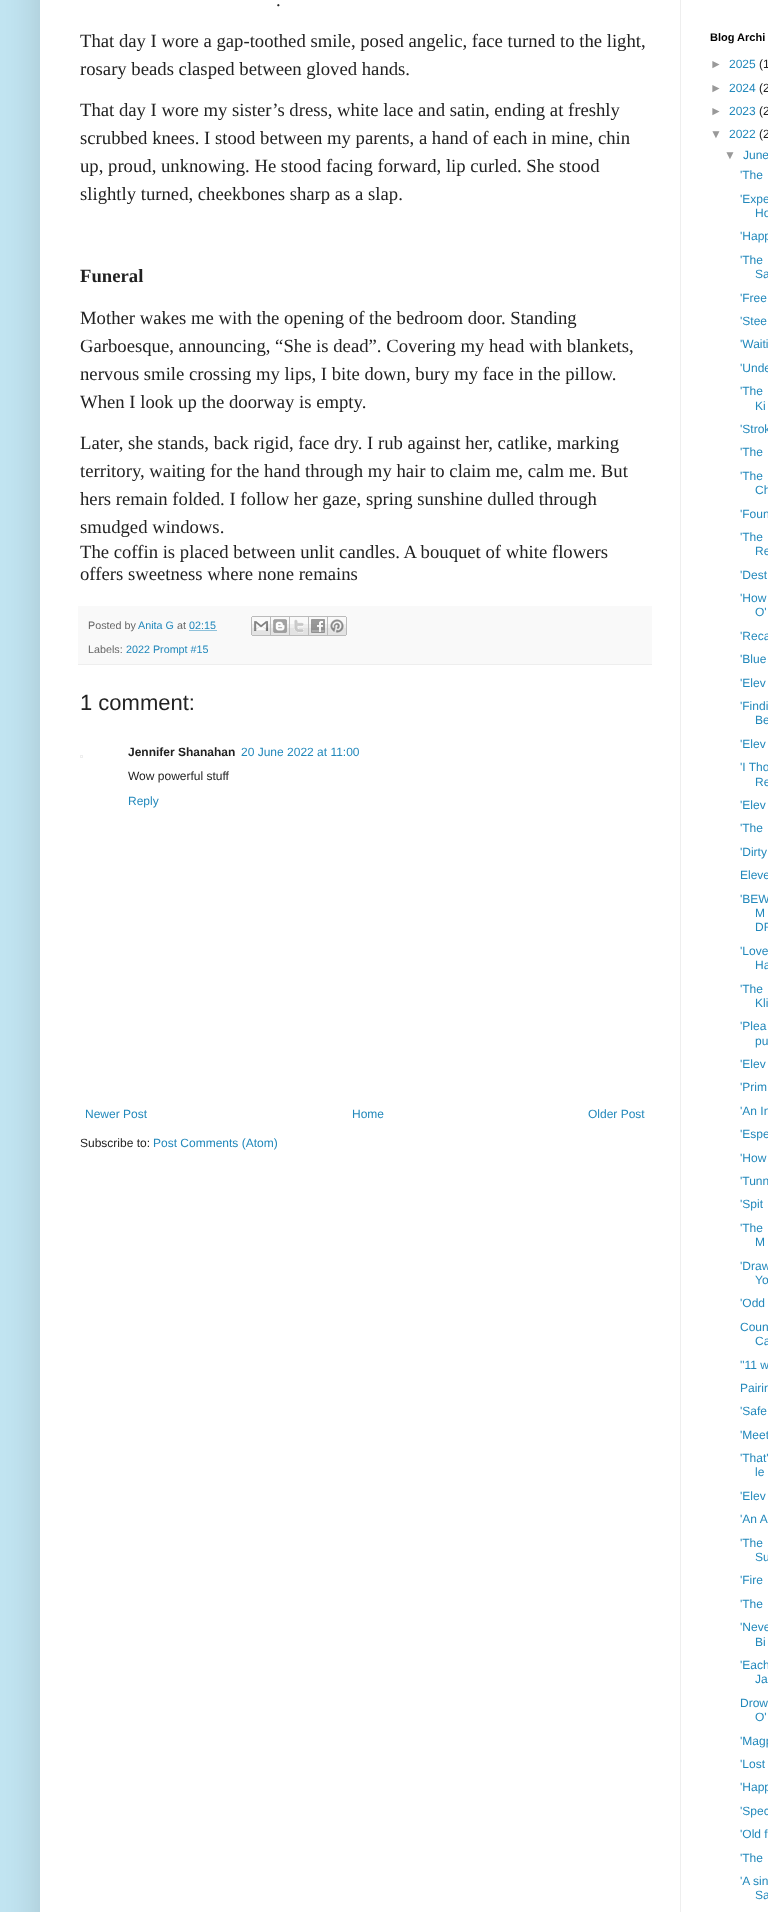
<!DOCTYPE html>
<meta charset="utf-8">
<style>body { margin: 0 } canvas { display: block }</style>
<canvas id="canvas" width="768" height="1912"></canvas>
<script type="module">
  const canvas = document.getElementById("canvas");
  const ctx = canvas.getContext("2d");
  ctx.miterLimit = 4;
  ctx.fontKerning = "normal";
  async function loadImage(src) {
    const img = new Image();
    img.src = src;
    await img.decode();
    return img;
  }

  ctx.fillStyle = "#c2e5f2";
  ctx.fillRect(0, 0, 768, 1912);
  ctx.fillStyle = "rgba(0, 0, 0, 0.15)";
  ctx.filter = "blur(20px)";
  ctx.beginPath();
  ctx.rect(40, -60, 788, 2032);
  ctx.fill();
  ctx.filter = "none";
  ctx.fillStyle = "#ffffff";
  ctx.fillRect(40, 0, 728, 1912);
  ctx.fillStyle = "#eeeeee";
  ctx.fillRect(680, 0, 1, 1912);
  ctx.font = "18.7px Liberation Serif";
  ctx.fillStyle = "#222222";
  ctx.fillText(".", 276, 6);
  ctx.fillText("That day I wore a gap-toothed smile, posed angelic, face turned to the light,", 80, 47);
  ctx.fillText("rosary beads clasped between gloved hands.", 80, 75);
  ctx.fillText("That day I wore my sister’s dress, white lace and satin, ending at freshly", 80, 116);
  ctx.fillText("scrubbed knees. I stood between my parents, a hand of each in mine, chin", 80, 144);
  ctx.fillText("up, proud, unknowing. He stood facing forward, lip curled. She stood", 80, 172);
  ctx.fillText("slightly turned, cheekbones sharp as a slap.", 80, 200);
  ctx.font = "bold 18.7px Liberation Serif";
  ctx.fillText("Funeral", 80, 282);
  ctx.font = "18.7px Liberation Serif";
  ctx.fillText("Mother wakes me with the opening of the bedroom door. Standing", 80, 324);
  ctx.fillText("Garboesque, announcing, “She is dead”. Covering my head with blankets,", 80, 352);
  ctx.fillText("nervous smile crossing my lips, I bite down, bury my face in the pillow.", 80, 380);
  ctx.fillText("When I look up the doorway is empty.", 80, 408);
  ctx.fillText("Later, she stands, back rigid, face dry. I rub against her, catlike, marking", 80, 449);
  ctx.fillText("territory, waiting for the hand through my hair to claim me, calm me. But", 80, 477);
  ctx.fillText("hers remain folded. I follow her gaze, spring sunshine dulled through", 80, 505);
  ctx.fillText("smudged windows.", 80, 533);
  ctx.fillText("The coffin is placed between unlit candles. A bouquet of white flowers", 80, 558);
  ctx.fillText("offers sweetness where none remains", 80, 580);
  ctx.fillStyle = "#f9f9f9";
  ctx.fillRect(78, 606, 574, 58);
  ctx.fillStyle = "#eeeeee";
  ctx.fillRect(78, 664, 574, 1);
  ctx.font = "10.75px Liberation Sans";
  ctx.fillStyle = "#666666";
  ctx.fillText("Posted by", 88, 629);
  ctx.fillStyle = "#2288bb";
  ctx.fillText("Anita G", 138, 629);
  ctx.fillStyle = "#666666";
  ctx.fillText("at", 177, 629);
  ctx.fillStyle = "#2288bb";
  ctx.fillText("02:15", 189, 629);
  ctx.beginPath();
  ctx.moveTo(189.5, 630.5);
  ctx.lineTo(216.5, 630.5);
  ctx.strokeStyle = "#2288bb";
  ctx.setLineDash([1, 1]);
  ctx.stroke();
  ctx.drawImage(await loadImage("img1.png"), 251, 616, 20, 20);
  ctx.drawImage(await loadImage("img2.png"), 271, 616, 19, 20);
  ctx.drawImage(await loadImage("img3.png"), 290, 616, 19, 20);
  ctx.drawImage(await loadImage("img4.png"), 309, 616, 19, 20);
  ctx.drawImage(await loadImage("img5.png"), 328, 616, 19, 20);
  ctx.fillStyle = "#666666";
  ctx.fillText("Labels:", 88, 653);
  ctx.fillStyle = "#2288bb";
  ctx.fillText("2022 Prompt #15", 126, 653);
  ctx.font = "22px Liberation Sans";
  ctx.fillStyle = "#222222";
  ctx.fillText("1 comment:", 80, 710);
  ctx.strokeStyle = "#eeeeee";
  ctx.setLineDash([]);
  ctx.strokeRect(80.5, 755.5, 2, 2);
  ctx.font = "bold 12px Liberation Sans";
  ctx.fillText("Jennifer Shanahan", 128, 756);
  ctx.font = "12px Liberation Sans";
  ctx.fillStyle = "#2288bb";
  ctx.fillText("20 June 2022 at 11:00", 241, 756);
  ctx.fillStyle = "#222222";
  ctx.fillText("Wow powerful stuff", 128, 780);
  ctx.fillStyle = "#2288bb";
  ctx.fillText("Reply", 128, 805);
  ctx.fillText("Newer Post", 85, 1118);
  ctx.fillText("Home", 352, 1118);
  ctx.fillText("Older Post", 588, 1118);
  ctx.fillStyle = "#222222";
  ctx.fillText("Subscribe to:", 80, 1147);
  ctx.fillStyle = "#2288bb";
  ctx.fillText("Post Comments (Atom)", 153, 1147);
  ctx.font = "bold 11px Liberation Sans";
  ctx.fillStyle = "#000000";
  ctx.fillText("Blog Archi", 710, 41);
  ctx.font = "12px Liberation Sans";
  ctx.fillStyle = "#999999";
  ctx.fillText("►", 710, 68);
  ctx.fillStyle = "#2288bb";
  ctx.fillText("2025", 729, 68);
  ctx.fillStyle = "#222222";
  ctx.fillText("(1", 759, 68);
  ctx.fillStyle = "#999999";
  ctx.fillText("►", 710, 92);
  ctx.fillStyle = "#2288bb";
  ctx.fillText("2024", 729, 92);
  ctx.fillStyle = "#222222";
  ctx.fillText("(2", 759, 92);
  ctx.fillStyle = "#999999";
  ctx.fillText("►", 710, 115);
  ctx.fillStyle = "#2288bb";
  ctx.fillText("2023", 729, 115);
  ctx.fillStyle = "#222222";
  ctx.fillText("(2", 759, 115);
  ctx.fillStyle = "#999999";
  ctx.fillText("▼", 710, 138);
  ctx.fillStyle = "#2288bb";
  ctx.fillText("2022", 729, 138);
  ctx.fillStyle = "#222222";
  ctx.fillText("(2", 759, 138);
  ctx.fillStyle = "#999999";
  ctx.fillText("▼", 724, 159);
  ctx.fillStyle = "#2288bb";
  ctx.fillText("June", 743, 159);
  ctx.fillText("'The", 740, 179);
  ctx.fillText("'Expe", 740, 203);
  ctx.fillText("Ho", 755, 217);
  ctx.fillText("'Happ", 740, 240);
  ctx.fillText("'The", 740, 264);
  ctx.fillText("Sa", 755, 278);
  ctx.fillText("'Free", 740, 302);
  ctx.fillText("'Stee", 740, 325);
  ctx.fillText("'Waiti", 740, 348);
  ctx.fillText("'Unde", 740, 372);
  ctx.fillText("'The", 740, 395);
  ctx.fillText("Ki", 755, 410);
  ctx.fillText("'Strok", 740, 433);
  ctx.fillText("'The", 740, 456);
  ctx.fillText("'The", 740, 480);
  ctx.fillText("Ch", 755, 494);
  ctx.fillText("'Foun", 740, 518);
  ctx.fillText("'The", 740, 541);
  ctx.fillText("Re", 755, 555);
  ctx.fillText("'Dest", 740, 579);
  ctx.fillText("'How", 740, 602);
  ctx.fillText("O'", 755, 616);
  ctx.fillText("'Reca", 740, 640);
  ctx.fillText("'Blue", 740, 663);
  ctx.fillText("'Elev", 740, 687);
  ctx.fillText("'Findi", 740, 710);
  ctx.fillText("Be", 755, 724);
  ctx.fillText("'Elev", 740, 748);
  ctx.fillText("'I Tho", 740, 771);
  ctx.fillText("Re", 755, 786);
  ctx.fillText("'Elev", 740, 809);
  ctx.fillText("'The", 740, 832);
  ctx.fillText("'Dirty", 740, 856);
  ctx.fillText("Eleve", 740, 879);
  ctx.fillText("'BEW", 740, 903);
  ctx.fillText("M", 755, 917);
  ctx.fillText("DR", 755, 931);
  ctx.fillText("'Love", 740, 955);
  ctx.fillText("Ha", 755, 969);
  ctx.fillText("'The", 740, 993);
  ctx.fillText("Kli", 755, 1007);
  ctx.fillText("'Plea", 740, 1030);
  ctx.fillText("pu", 755, 1045);
  ctx.fillText("'Elev", 740, 1068);
  ctx.fillText("'Prim", 740, 1091);
  ctx.fillText("'An In", 740, 1115);
  ctx.fillText("'Espe", 740, 1138);
  ctx.fillText("'How", 740, 1162);
  ctx.fillText("'Tunn", 740, 1185);
  ctx.fillText("'Spit", 740, 1208);
  ctx.fillText("'The", 740, 1232);
  ctx.fillText("M", 755, 1246);
  ctx.fillText("'Draw", 740, 1270);
  ctx.fillText("Yo", 755, 1284);
  ctx.fillText("'Odd", 740, 1307);
  ctx.fillText("Coun", 740, 1331);
  ctx.fillText("Ca", 755, 1345);
  ctx.fillText("''11 w", 740, 1369);
  ctx.fillText("Pairin", 740, 1392);
  ctx.fillText("'Safe", 740, 1415);
  ctx.fillText("'Meet", 740, 1439);
  ctx.fillText("'That'", 740, 1462);
  ctx.fillText("le", 755, 1476);
  ctx.fillText("'Elev", 740, 1500);
  ctx.fillText("'An A", 740, 1523);
  ctx.fillText("'The", 740, 1547);
  ctx.fillText("Su", 755, 1561);
  ctx.fillText("'Fire", 740, 1584);
  ctx.fillText("'The", 740, 1608);
  ctx.fillText("'Neve", 740, 1631);
  ctx.fillText("Bi", 755, 1646);
  ctx.fillText("'Each", 740, 1669);
  ctx.fillText("Ja", 755, 1683);
  ctx.fillText("Drow", 740, 1707);
  ctx.fillText("O'", 755, 1721);
  ctx.fillText("'Magp", 740, 1745);
  ctx.fillText("'Lost", 740, 1768);
  ctx.fillText("'Happ", 740, 1791);
  ctx.fillText("'Spec", 740, 1815);
  ctx.fillText("'Old f", 740, 1838);
  ctx.fillText("'The", 740, 1862);
  ctx.fillText("'A sin", 740, 1885);
  ctx.fillText("Sa", 755, 1899);
</script>
